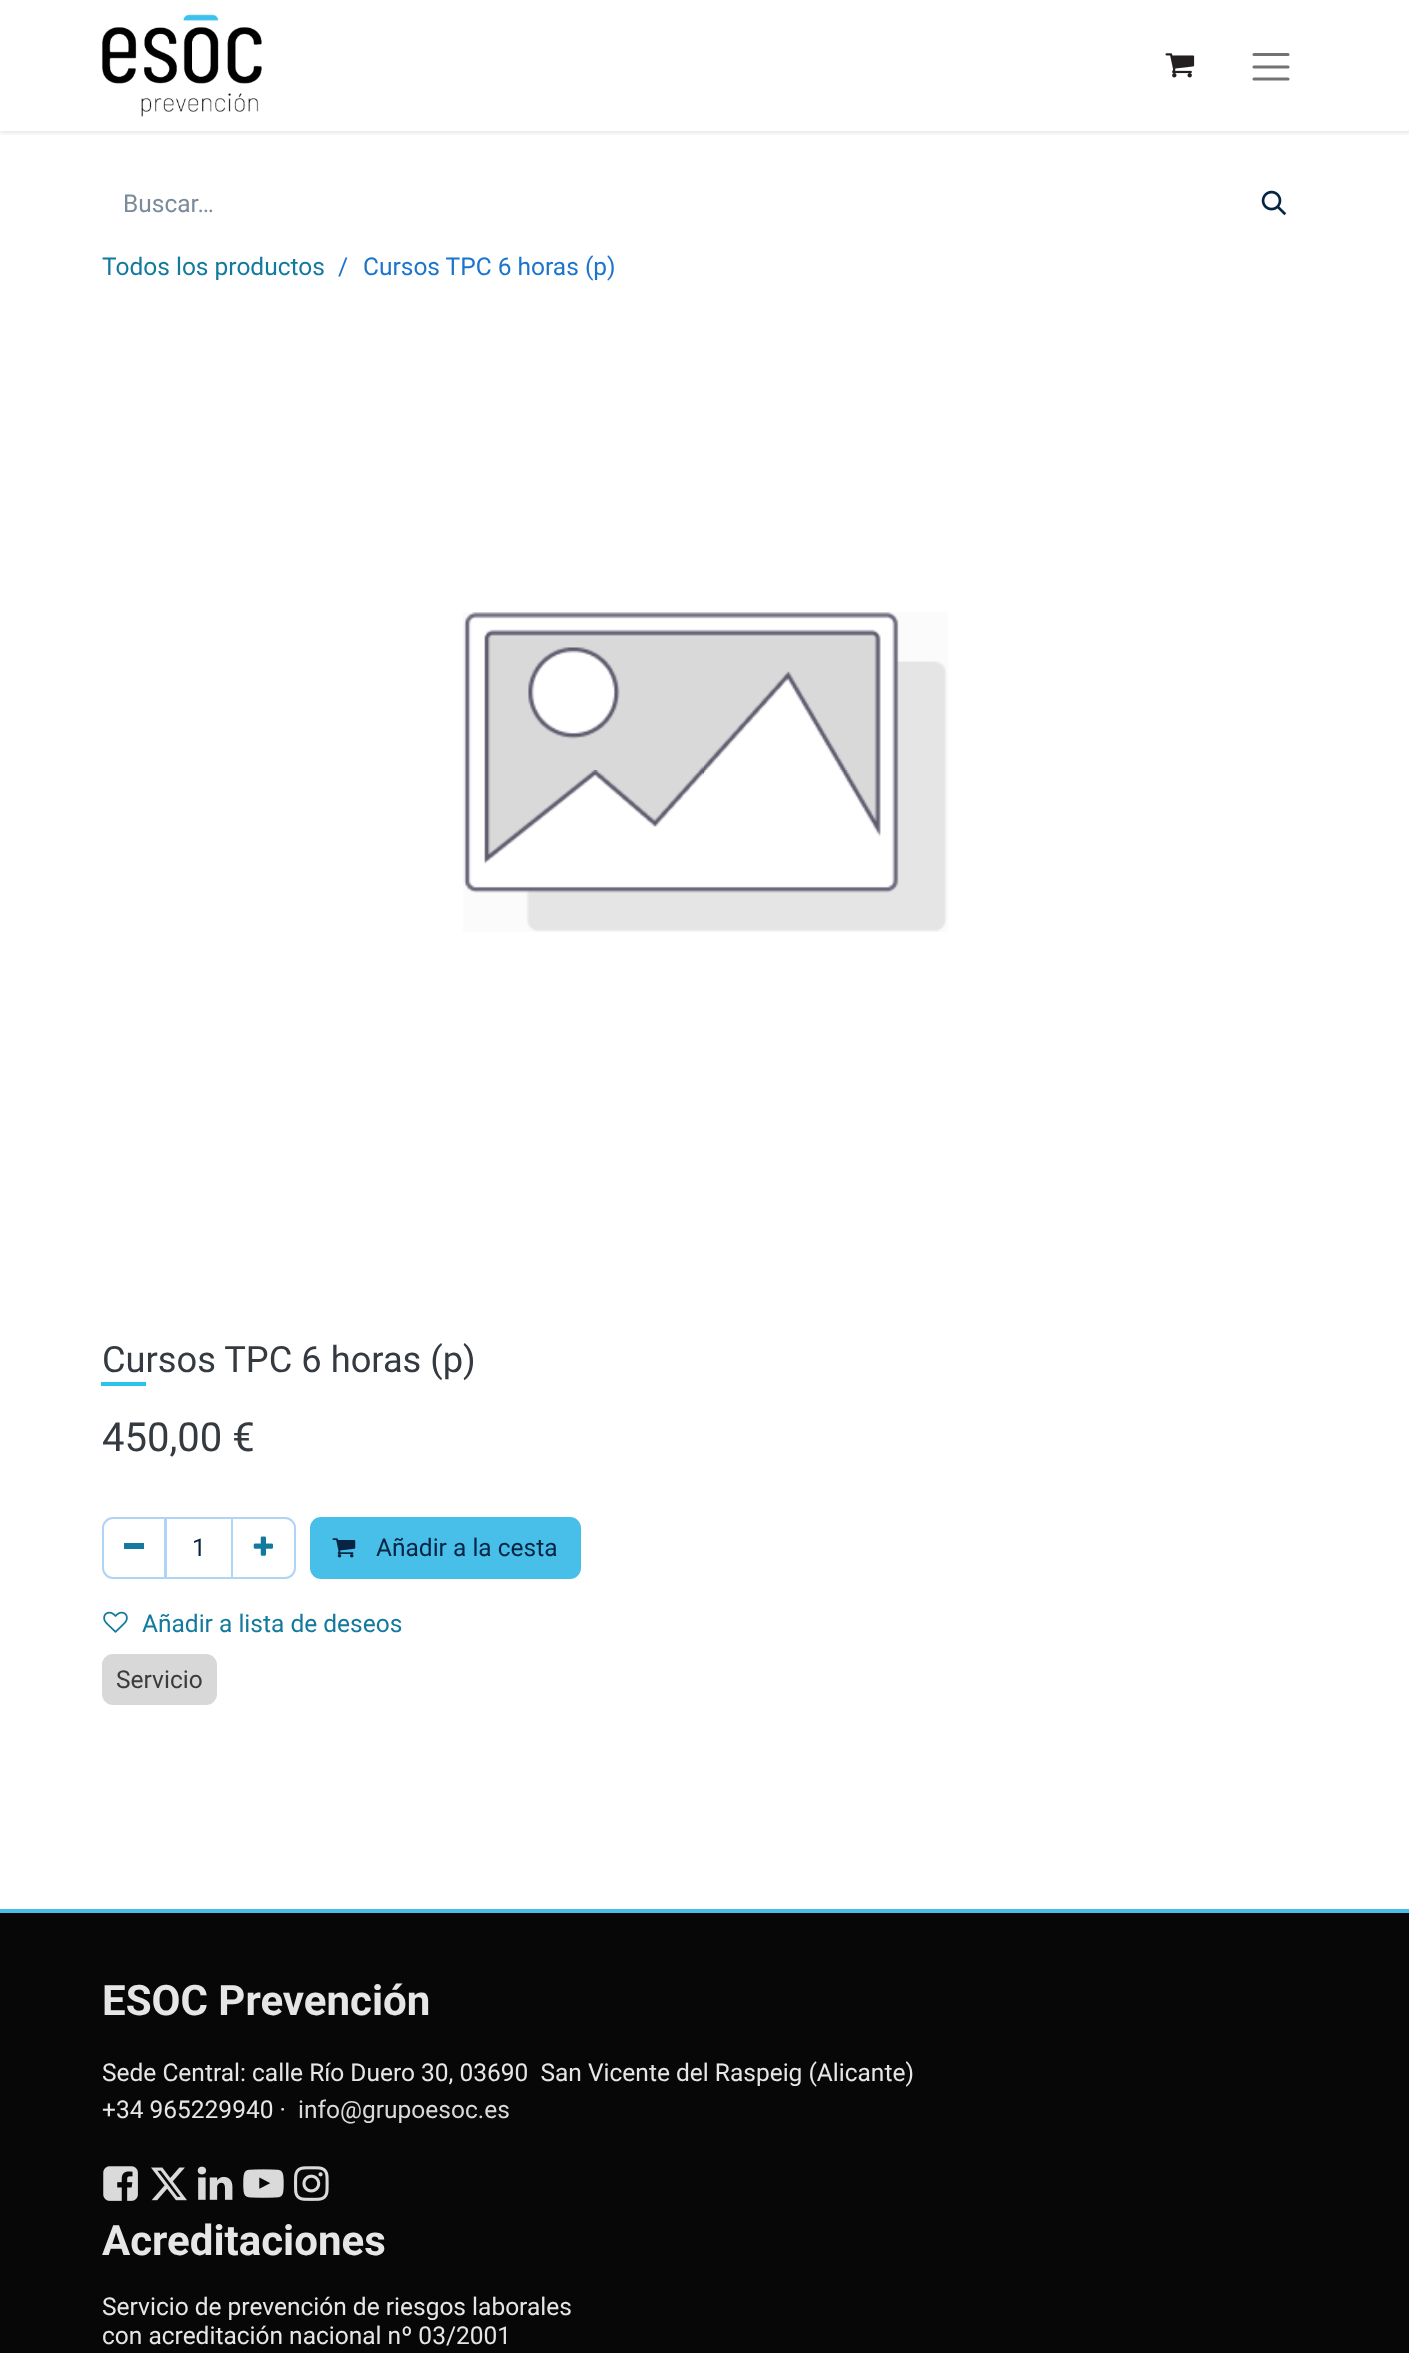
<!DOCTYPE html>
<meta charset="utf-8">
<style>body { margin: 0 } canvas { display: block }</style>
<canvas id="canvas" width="1409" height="2353"></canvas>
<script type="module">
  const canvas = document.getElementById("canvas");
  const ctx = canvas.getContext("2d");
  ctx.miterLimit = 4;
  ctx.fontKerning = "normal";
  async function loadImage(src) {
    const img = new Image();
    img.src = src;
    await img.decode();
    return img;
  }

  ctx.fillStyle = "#ffffff";
  ctx.fillRect(0, 0, 1409, 2353);
  ctx.save();
  ctx.beginPath();
  ctx.rect(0, 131, 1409, 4);
  ctx.clip();
  ctx.fillStyle = "rgba(0, 0, 0, 0.1)";
  ctx.filter = "blur(2.5px)";
  ctx.beginPath();
  ctx.rect(0, 2, 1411, 131);
  ctx.fill();
  ctx.filter = "none";
  ctx.restore();
  ctx.drawImage(await loadImage("img1.png"), 101, 14, 161, 103);
  ctx.drawImage(await loadImage("img2.png"), 1165, 53, 30, 25);
  ctx.beginPath();
  ctx.moveTo(1254, 54.5);
  ctx.lineTo(1288, 54.5);
  ctx.moveTo(1254, 67);
  ctx.lineTo(1288, 67);
  ctx.moveTo(1254, 79);
  ctx.lineTo(1288, 79);
  ctx.strokeStyle = "#737373";
  ctx.lineWidth = 3.1;
  ctx.lineCap = "round";
  ctx.stroke();
  ctx.font = "24.5px Roboto";
  ctx.fillStyle = "#7b8b9b";
  ctx.fillText("Buscar…", 123, 212);
  ctx.drawImage(await loadImage("img3.png"), 1261, 190, 26, 26);
  ctx.fillStyle = "#137a9e";
  ctx.fillText("Todos los productos", 102, 275);
  ctx.fillStyle = "#1c75cd";
  ctx.fillText("/", 338, 275);
  ctx.fillText("Cursos TPC 6 horas (p)", 363, 275);
  ctx.drawImage(await loadImage("img4.png"), 463, 612, 485, 320);
  ctx.fillStyle = "#2ac3ec";
  ctx.fillRect(101, 1382, 45, 4);
  ctx.font = "36.25px Roboto";
  ctx.fillStyle = "#343a40";
  ctx.fillText("Cursos TPC 6 horas (p)", 102, 1372);
  ctx.font = "40px Roboto";
  ctx.fillText("450,00 €", 102, 1451);
  ctx.strokeStyle = "#b0d4f8";
  ctx.lineWidth = 2;
  ctx.strokeRect(166, 1518, 66, 60);
  ctx.beginPath();
  ctx.roundRect(103, 1518, 62, 60, [10, 0, 0, 10]);
  ctx.stroke();
  ctx.fillStyle = "#137a9e";
  ctx.fillRect(124, 1543, 20, 6);
  ctx.font = "24.5px Roboto";
  ctx.fillStyle = "#072543";
  ctx.fillText("1", 192, 1556);
  ctx.beginPath();
  ctx.roundRect(232, 1518, 63, 60, [0, 10, 10, 0]);
  ctx.stroke();
  ctx.drawImage(await loadImage("img5.png"), 253, 1536, 20, 20);
  ctx.fillStyle = "#48bfe9";
  ctx.beginPath();
  ctx.roundRect(311, 1518, 269, 60, 10);
  ctx.fill();
  ctx.strokeStyle = "#48bfe9";
  ctx.stroke();
  ctx.drawImage(await loadImage("img6.png"), 332, 1538, 24, 20);
  ctx.fillStyle = "#072543";
  ctx.fillText("Añadir a la cesta", 376, 1556);
  ctx.drawImage(await loadImage("img7.png"), 103, 1611, 25, 22);
  ctx.fillStyle = "#137a9e";
  ctx.fillText("Añadir a lista de deseos", 142, 1632);
  ctx.fillStyle = "#3c3c3c";
  ctx.fillText("Servicio", 116, 1688);
  ctx.fillStyle = "rgba(60, 60, 60, 0.2)";
  ctx.beginPath();
  ctx.roundRect(102, 1654, 115, 51, 11);
  ctx.fill();
  ctx.fillStyle = "#080708";
  ctx.fillRect(0, 1913, 1409, 440);
  ctx.fillStyle = "#48bfe9";
  ctx.fillRect(0, 1909, 1409, 4);
  ctx.font = "bold 42px Roboto";
  ctx.fillStyle = "#e6e6e6";
  ctx.fillText("ESOC Prevención", 102, 2015);
  ctx.font = "24.5px Roboto";
  ctx.fillText("Sede Central: calle Río Duero 30, 03690  San Vicente del Raspeig (Alicante)", 102, 2081);
  ctx.fillText("+34 965229940 ·", 102, 2118);
  ctx.fillStyle = "#dadada";
  ctx.fillText("info@grupoesoc.es", 298, 2118);
  ctx.drawImage(await loadImage("img8.png"), 103, 2166, 35, 35);
  ctx.drawImage(await loadImage("img9.png"), 151, 2167, 36, 34);
  ctx.drawImage(await loadImage("img10.png"), 197, 2166, 36, 34);
  ctx.drawImage(await loadImage("img11.png"), 243, 2169, 41, 29);
  ctx.drawImage(await loadImage("img12.png"), 294, 2166, 35, 35);
  ctx.font = "bold 42px Roboto";
  ctx.fillStyle = "#e6e6e6";
  ctx.fillText("Acreditaciones", 102, 2255);
  ctx.font = "24.5px Roboto";
  ctx.fillText("Servicio de prevención de riesgos laborales", 102, 2315);
  ctx.fillText("con acreditación nacional nº 03/2001", 102, 2344);
</script>
